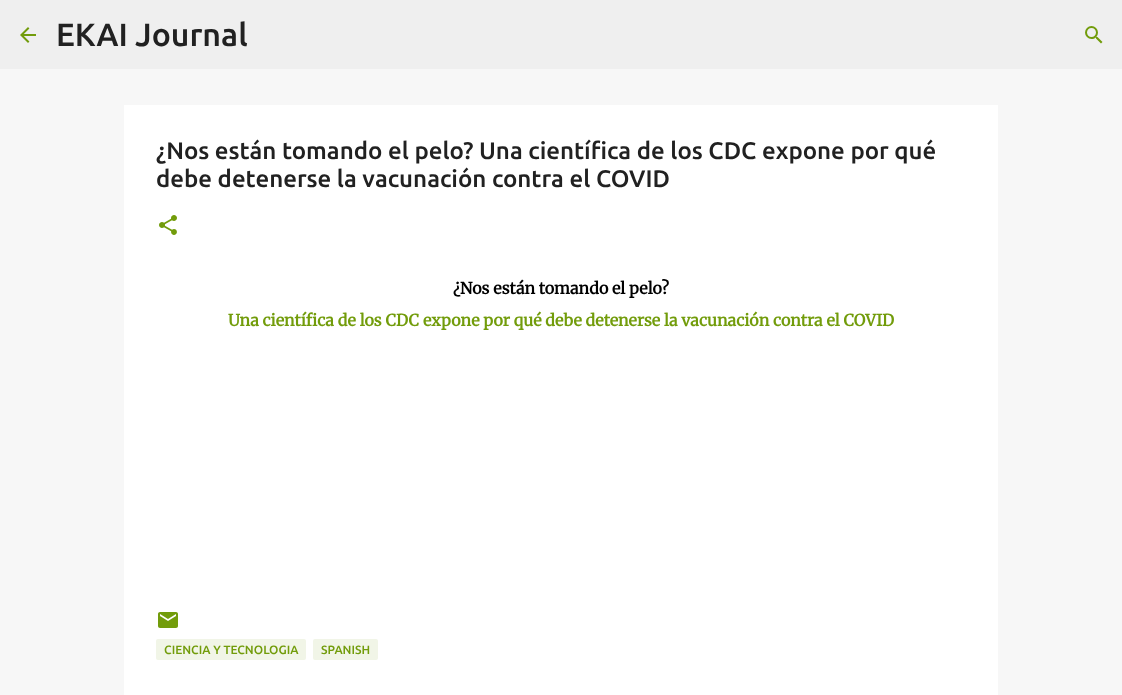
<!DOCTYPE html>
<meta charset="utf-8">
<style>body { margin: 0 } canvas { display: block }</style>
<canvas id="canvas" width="1122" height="695"></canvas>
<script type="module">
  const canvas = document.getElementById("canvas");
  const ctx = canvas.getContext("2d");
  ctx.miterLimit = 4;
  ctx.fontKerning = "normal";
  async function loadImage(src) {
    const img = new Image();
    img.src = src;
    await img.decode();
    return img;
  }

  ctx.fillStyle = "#f7f7f7";
  ctx.fillRect(0, 0, 1122, 695);
  ctx.fillStyle = "#efefef";
  ctx.fillRect(0, 0, 1122, 69);
  ctx.drawImage(await loadImage("img1.png"), 20, 27, 16, 16);
  ctx.font = "500 32px Ubuntu";
  ctx.fillStyle = "#212121";
  ctx.fillText("EKAI Journal", 56, 46);
  ctx.drawImage(await loadImage("img2.png"), 1085, 26, 18, 18);
  ctx.fillStyle = "#ffffff";
  ctx.fillRect(124, 105, 874, 590);
  ctx.font = "500 24px Ubuntu";
  ctx.fillStyle = "#212121";
  ctx.fillText("¿Nos están tomando el pelo? Una científica de los CDC expone por qué", 156, 159);
  ctx.fillText("debe detenerse la vacunación contra el COVID", 156, 187);
  ctx.drawImage(await loadImage("img3.png"), 159, 215, 18, 20);
  ctx.font = "bold 16px Merriweather";
  ctx.fillStyle = "#000000";
  ctx.fillText("¿Nos están tomando el pelo?", 453, 294);
  ctx.fillStyle = "#729c0b";
  ctx.fillText("Una científica de los CDC expone por qué debe detenerse la vacunación contra el COVID", 228, 326);
  ctx.drawImage(await loadImage("img4.png"), 158, 612, 20, 16);
  ctx.fillStyle = "#f1f5e7";
  ctx.beginPath();
  ctx.roundRect(156, 639, 150, 21, 2);
  ctx.fill();
  ctx.font = "500 12px Ubuntu";
  ctx.fillStyle = "#729c0b";
  ctx.fillText("CIENCIA Y TECNOLOGIA", 164, 654);
  ctx.fillStyle = "#f1f5e7";
  ctx.beginPath();
  ctx.roundRect(313, 639, 65, 21, 2);
  ctx.fill();
  ctx.fillStyle = "#729c0b";
  ctx.fillText("SPANISH", 321, 654);
</script>
